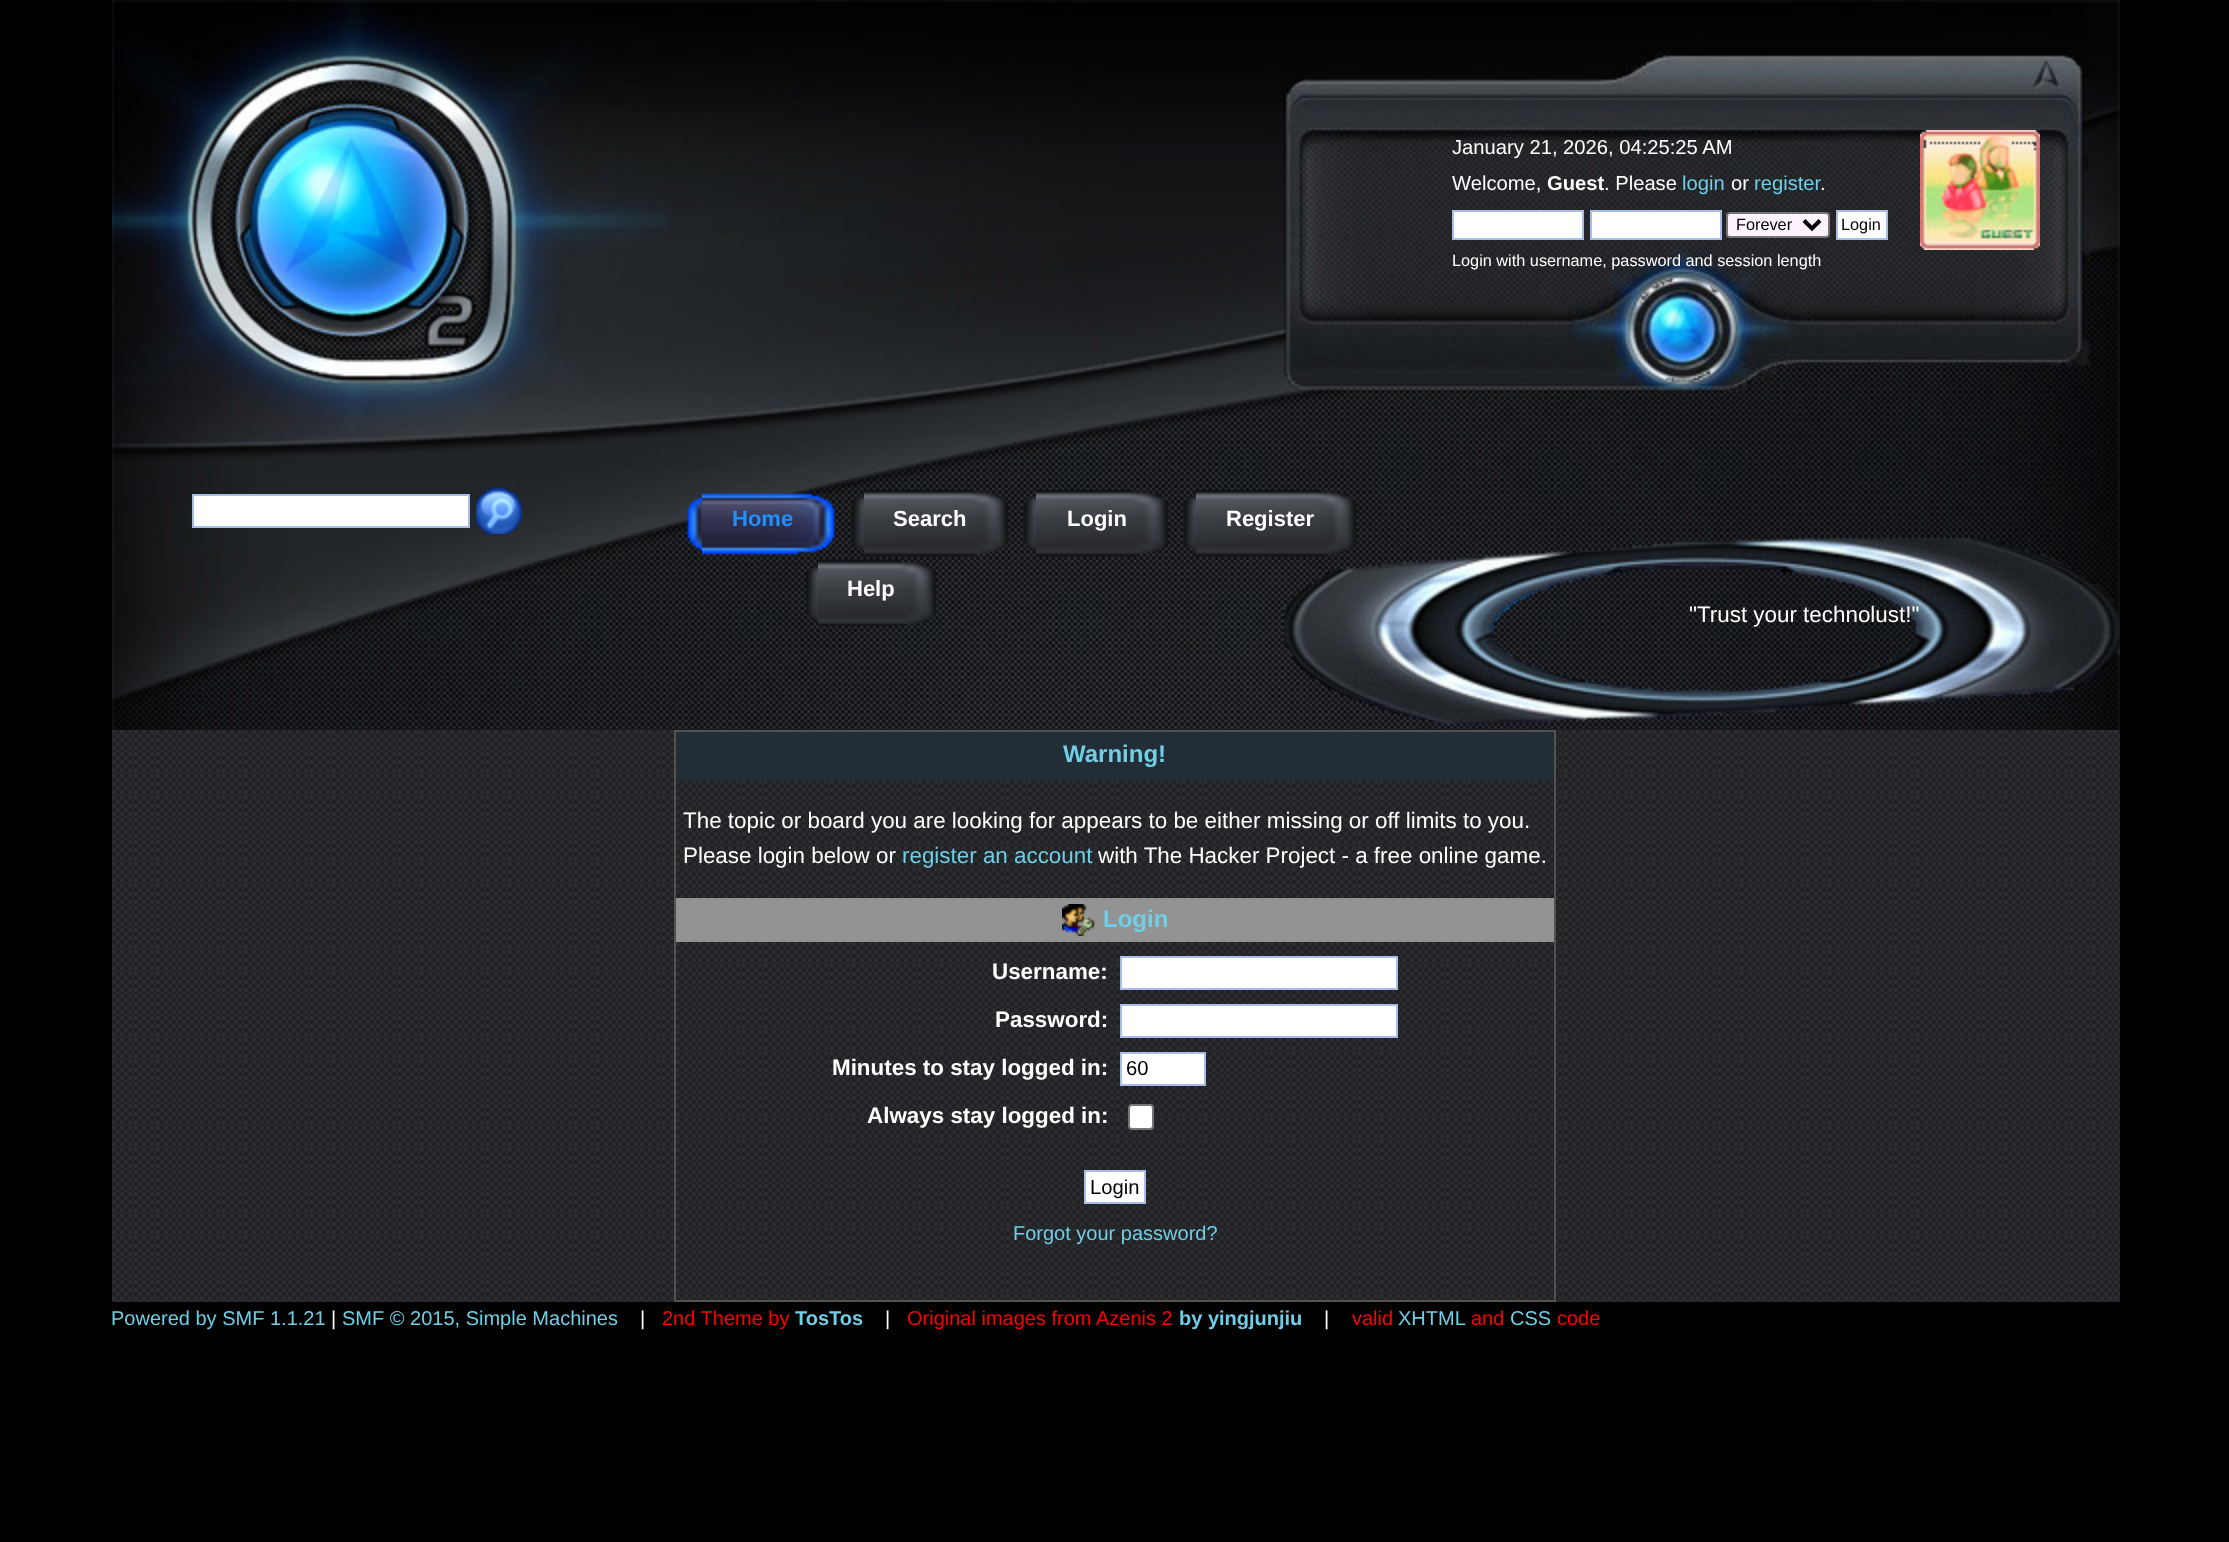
<!DOCTYPE html>
<meta charset="utf-8">
<style>body { margin: 0 } canvas { display: block }</style>
<canvas id="canvas" width="2229" height="1542"></canvas>
<script type="module">
  const canvas = document.getElementById("canvas");
  const ctx = canvas.getContext("2d");
  ctx.miterLimit = 4;
  ctx.fontKerning = "normal";
  async function loadImage(src) {
    const img = new Image();
    img.src = src;
    await img.decode();
    return img;
  }

  ctx.fillStyle = "#000000";
  ctx.fillRect(0, 0, 2229, 1542);
  ctx.drawImage(await loadImage("img1.png"), 112, 0, 2008, 730);
  ctx.font = "20.2px Liberation Sans";
  ctx.fillStyle = "#ffffff";
  ctx.fillText("January 21, 2026, 04:25:25 AM", 1452, 154);
  ctx.fillText("Welcome,", 1452, 190);
  ctx.font = "bold 20.2px Liberation Sans";
  ctx.fillText("Guest", 1547, 190);
  ctx.font = "20.2px Liberation Sans";
  ctx.fillText(". Please", 1604, 190);
  ctx.fillStyle = "#70cee6";
  ctx.fillText("login", 1682, 190);
  ctx.fillStyle = "#ffffff";
  ctx.fillText("or", 1731, 190);
  ctx.fillStyle = "#70cee6";
  ctx.fillText("register", 1754, 190);
  ctx.fillStyle = "#ffffff";
  ctx.fillText(".", 1820, 190);
  ctx.beginPath();
  ctx.rect(1453, 211, 130, 28);
  ctx.fill();
  ctx.strokeStyle = "#a8bee6";
  ctx.lineWidth = 2;
  ctx.stroke();
  ctx.beginPath();
  ctx.rect(1591, 211, 130, 28);
  ctx.fill();
  ctx.stroke();
  ctx.fillStyle = "#fdf3ff";
  ctx.beginPath();
  ctx.roundRect(1727, 213, 102, 24, 3);
  ctx.fill();
  ctx.strokeStyle = "#767676";
  ctx.stroke();
  ctx.beginPath();
  ctx.moveTo(1804, 220.5);
  ctx.lineTo(1812, 228.5);
  ctx.lineTo(1820, 220.5);
  ctx.strokeStyle = "#000000";
  ctx.lineWidth = 4;
  ctx.stroke();
  ctx.font = "16.3px Liberation Sans";
  ctx.fillStyle = "#000000";
  ctx.fillText("Forever", 1736, 230);
  ctx.fillStyle = "#ffffff";
  ctx.beginPath();
  ctx.rect(1837, 211, 50, 28);
  ctx.fill();
  ctx.strokeStyle = "#a8bee6";
  ctx.lineWidth = 2;
  ctx.stroke();
  ctx.fillStyle = "#000000";
  ctx.fillText("Login", 1841, 230);
  ctx.fillStyle = "#ffffff";
  ctx.fillText("Login with username, password and session length", 1452, 266);
  ctx.drawImage(await loadImage("img2.png"), 1920, 130, 120, 120);
  ctx.beginPath();
  ctx.rect(193, 495, 276, 32);
  ctx.fill();
  ctx.stroke();
  ctx.drawImage(await loadImage("img3.png"), 476, 488, 46, 46);
  ctx.drawImage(await loadImage("img4.png"), 687, 493, 29, 58);
  ctx.drawImage(await loadImage("img5.png"), 702, 493, 133, 62);
  ctx.font = "bold 22px Liberation Sans";
  ctx.fillStyle = "#1e90ff";
  ctx.fillText("Home", 732, 526);
  ctx.drawImage(await loadImage("img6.png"), 851, 493, 13, 60);
  ctx.drawImage(await loadImage("img7.png"), 864, 489, 145, 68);
  ctx.fillStyle = "#ffffff";
  ctx.fillText("Search", 893, 526);
  ctx.drawImage(await loadImage("img8.png"), 1023, 493, 13, 60);
  ctx.drawImage(await loadImage("img9.png"), 1036, 489, 133, 68);
  ctx.fillText("Login", 1067, 526);
  ctx.drawImage(await loadImage("img10.png"), 1183, 493, 13, 60);
  ctx.drawImage(await loadImage("img11.png"), 1196, 489, 161, 68);
  ctx.fillText("Register", 1226, 526);
  ctx.drawImage(await loadImage("img12.png"), 805, 563, 13, 60);
  ctx.drawImage(await loadImage("img13.png"), 818, 559, 119, 68);
  ctx.fillText("Help", 847, 596);
  ctx.font = "22.4px Liberation Sans";
  ctx.fillText("\"Trust your technolust!\"", 1689, 622);
  ctx.drawImage(await loadImage("img14.png"), 112, 730, 2008, 572);
  ctx.strokeStyle = "#525252";
  ctx.strokeRect(675, 731, 880, 570);
  ctx.fillStyle = "#232d36";
  ctx.fillRect(676, 732, 878, 48);
  ctx.font = "bold 24px Liberation Sans";
  ctx.fillStyle = "#70cee6";
  ctx.fillText("Warning!", 1063, 762);
  ctx.drawImage(await loadImage("img15.png"), 676, 780, 878, 118);
  ctx.font = "22.4px Liberation Sans";
  ctx.fillStyle = "#ffffff";
  ctx.fillText("The topic or board you are looking for appears to be either missing or off limits to you.", 683, 828);
  ctx.fillText("Please login below or", 683, 863);
  ctx.fillStyle = "#70cee6";
  ctx.fillText("register an account", 902, 863);
  ctx.fillStyle = "#ffffff";
  ctx.fillText("with The Hacker Project - a free online game.", 1098, 863);
  ctx.fillStyle = "#939393";
  ctx.fillRect(676, 898, 878, 44);
  ctx.drawImage(await loadImage("img16.png"), 1062, 904, 33, 32);
  ctx.font = "bold 24px Liberation Sans";
  ctx.fillStyle = "#70cee6";
  ctx.fillText("Login", 1103, 927);
  ctx.drawImage(await loadImage("img17.png"), 676, 942, 878, 358);
  ctx.font = "bold 22.4px Liberation Sans";
  ctx.fillStyle = "#ffffff";
  ctx.fillText("Username:", 992, 979);
  ctx.beginPath();
  ctx.rect(1121, 957, 276, 32);
  ctx.fill();
  ctx.strokeStyle = "#a8bee6";
  ctx.stroke();
  ctx.fillText("Password:", 995, 1027);
  ctx.beginPath();
  ctx.rect(1121, 1005, 276, 32);
  ctx.fill();
  ctx.stroke();
  ctx.fillText("Minutes to stay logged in:", 832, 1075);
  ctx.beginPath();
  ctx.rect(1121, 1053, 84, 32);
  ctx.fill();
  ctx.stroke();
  ctx.font = "20.2px Liberation Sans";
  ctx.fillStyle = "#000000";
  ctx.fillText("60", 1126, 1075);
  ctx.font = "bold 22.4px Liberation Sans";
  ctx.fillStyle = "#ffffff";
  ctx.fillText("Always stay logged in:", 867, 1123);
  ctx.beginPath();
  ctx.roundRect(1129, 1105, 24, 24, 3);
  ctx.fill();
  ctx.strokeStyle = "#767676";
  ctx.stroke();
  ctx.beginPath();
  ctx.rect(1085, 1171, 60, 32);
  ctx.fill();
  ctx.strokeStyle = "#a8bee6";
  ctx.stroke();
  ctx.font = "20.2px Liberation Sans";
  ctx.fillStyle = "#000000";
  ctx.fillText("Login", 1090, 1194);
  ctx.font = "20px Liberation Sans";
  ctx.fillStyle = "#70cee6";
  ctx.fillText("Forgot your password?", 1013, 1240);
  ctx.fillText("Powered by SMF 1.1.21", 111, 1325);
  ctx.fillStyle = "#ffffff";
  ctx.fillText("|", 331, 1325);
  ctx.fillStyle = "#70cee6";
  ctx.fillText("SMF © 2015, Simple Machines", 342, 1325);
  ctx.fillStyle = "#ffffff";
  ctx.fillText("|", 640, 1325);
  ctx.fillStyle = "#ff0000";
  ctx.fillText("2nd Theme by", 662, 1325);
  ctx.font = "bold 20px Liberation Sans";
  ctx.fillStyle = "#70cee6";
  ctx.fillText("TosTos", 795, 1325);
  ctx.font = "20px Liberation Sans";
  ctx.fillStyle = "#ffffff";
  ctx.fillText("|", 885, 1325);
  ctx.fillStyle = "#ff0000";
  ctx.fillText("Original images from Azenis 2", 907, 1325);
  ctx.font = "bold 20px Liberation Sans";
  ctx.fillStyle = "#70cee6";
  ctx.fillText("by yingjunjiu", 1179, 1325);
  ctx.font = "20px Liberation Sans";
  ctx.fillStyle = "#ffffff";
  ctx.fillText("|", 1324, 1325);
  ctx.fillStyle = "#ff0000";
  ctx.fillText("valid", 1352, 1325);
  ctx.fillStyle = "#70cee6";
  ctx.fillText("XHTML", 1398, 1325);
  ctx.fillStyle = "#ff0000";
  ctx.fillText("and", 1471, 1325);
  ctx.fillStyle = "#70cee6";
  ctx.fillText("CSS", 1510, 1325);
  ctx.fillStyle = "#ff0000";
  ctx.fillText("code", 1557, 1325);
</script>
